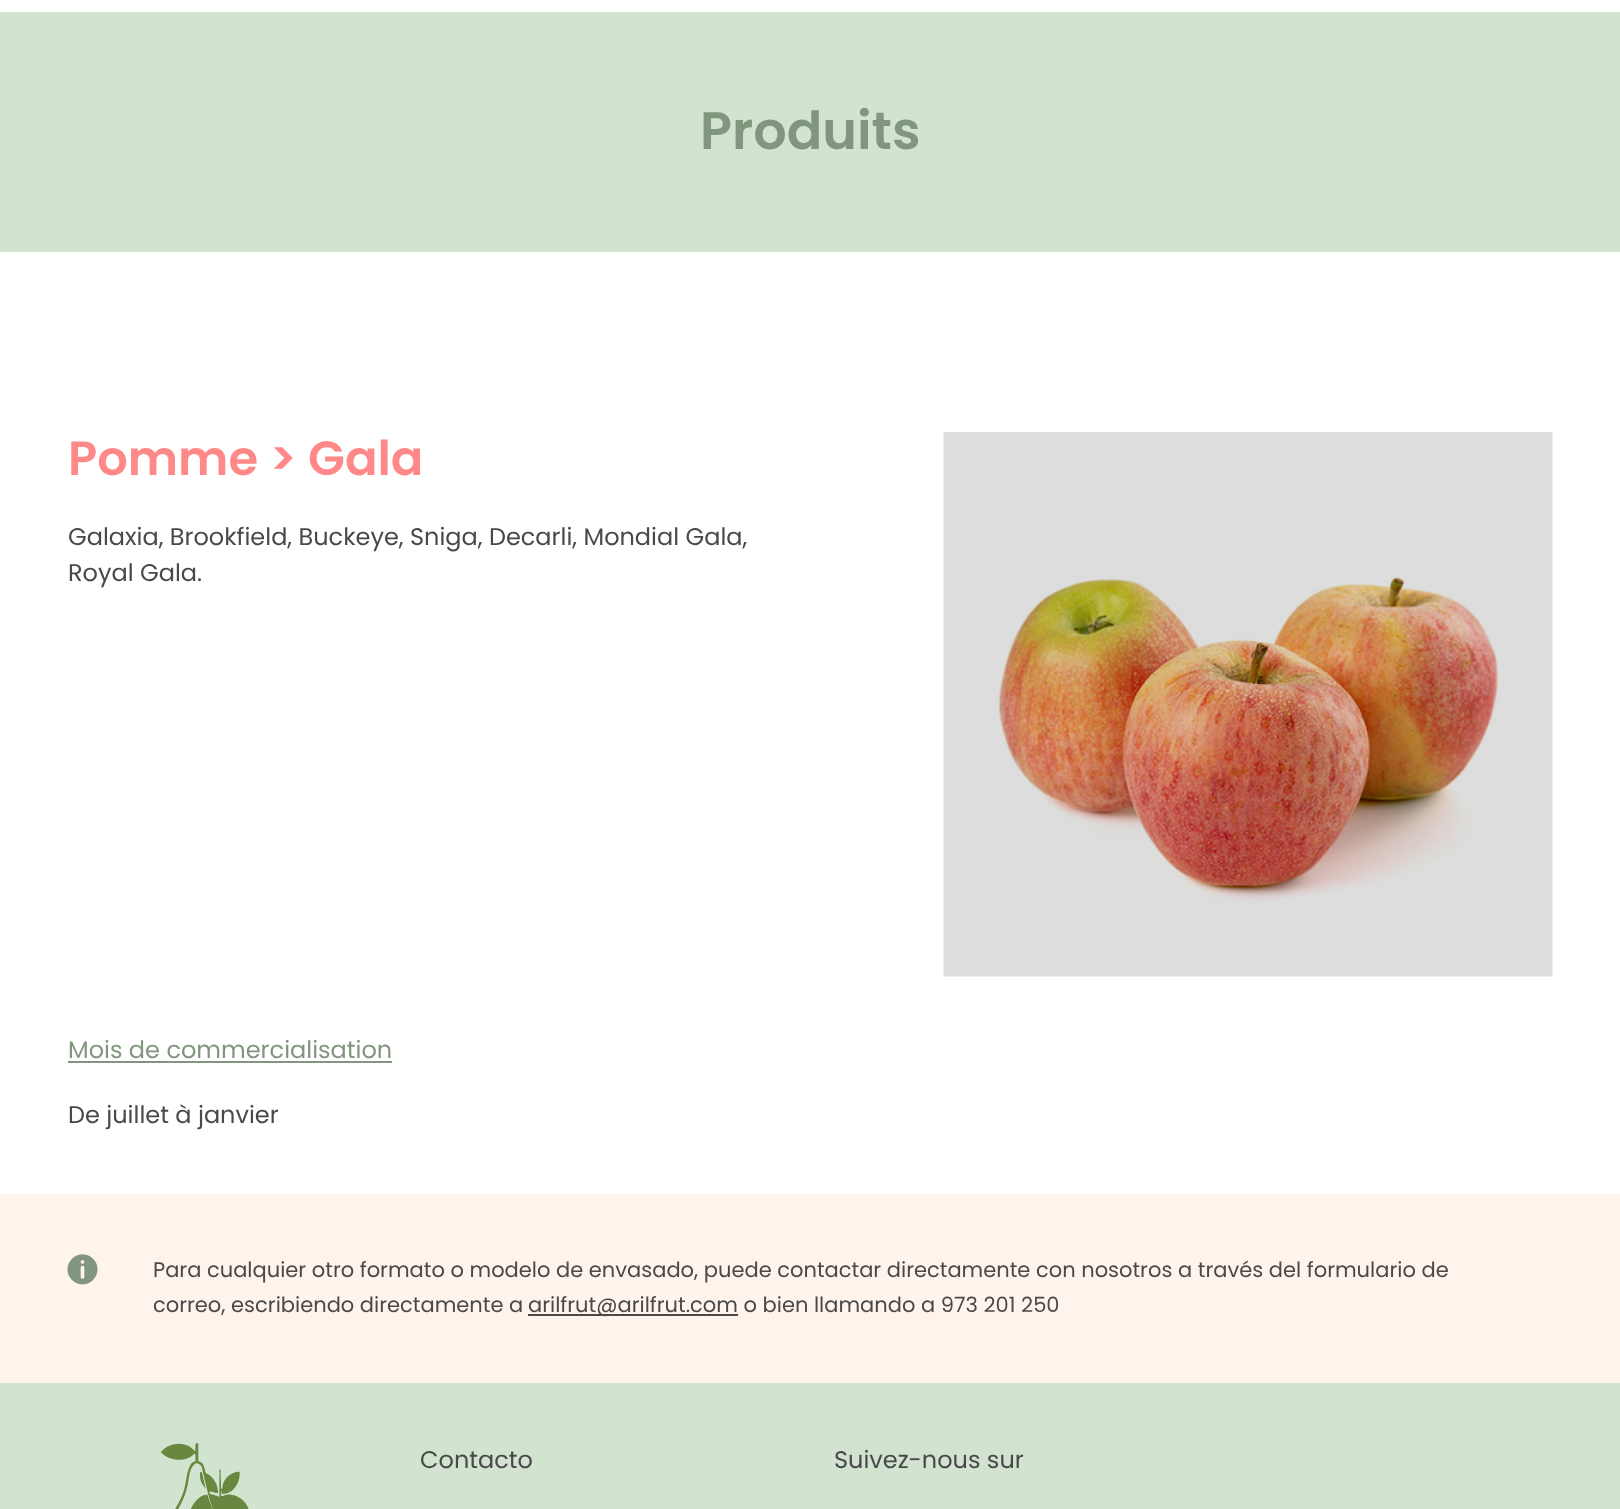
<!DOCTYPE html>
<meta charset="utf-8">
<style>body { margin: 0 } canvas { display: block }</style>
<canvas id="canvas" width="1620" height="1509"></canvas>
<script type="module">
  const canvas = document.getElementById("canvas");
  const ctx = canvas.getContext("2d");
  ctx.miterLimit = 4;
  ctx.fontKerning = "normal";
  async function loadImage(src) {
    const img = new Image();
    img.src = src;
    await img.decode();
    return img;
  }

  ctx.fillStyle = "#ffffff";
  ctx.fillRect(0, 0, 1620, 1509);
  ctx.fillStyle = "#d2e4d0";
  ctx.fillRect(0, 12, 1620, 240);
  ctx.font = "600 52.5px Poppins";
  ctx.fillStyle = "#82967f";
  ctx.fillText("Produits", 700, 149);
  ctx.font = "600 48px Poppins";
  ctx.fillStyle = "#ff8989";
  ctx.fillText("Pomme > Gala", 68, 475);
  ctx.font = "24px Poppins";
  ctx.fillStyle = "#494949";
  ctx.fillText("Galaxia, Brookfield, Buckeye, Sniga, Decarli, Mondial Gala,", 68, 545);
  ctx.fillText("Royal Gala.", 68, 581);
  ctx.fillStyle = "#82967f";
  ctx.fillText("Mois de commercialisation", 68, 1058);
  ctx.fillRect(68, 1061, 324, 2);
  ctx.fillStyle = "#494949";
  ctx.fillText("De juillet à janvier", 68, 1123);
  ctx.drawImage(await loadImage("img1.png"), 943, 432, 610, 545);
  ctx.fillStyle = "#fff4eb";
  ctx.fillRect(0, 1194, 1620, 189);
  ctx.drawImage(await loadImage("img2.png"), 67, 1254, 31, 31);
  ctx.font = "21px Poppins";
  ctx.fillStyle = "#494949";
  ctx.fillText("Para cualquier otro formato o modelo de envasado, puede contactar directamente con nosotros a través del formulario de", 153, 1277);
  ctx.fillText("correo, escribiendo directamente a", 153, 1312);
  ctx.fillRect(528, 1314, 210, 2);
  ctx.fillText("arilfrut@arilfrut.com o bien llamando a 973 201 250", 528, 1312);
  ctx.fillStyle = "#d2e4d0";
  ctx.fillRect(0, 1383, 1620, 126);
  ctx.drawImage(await loadImage("img3.png"), 161, 1443, 88, 66);
  ctx.font = "24px Poppins";
  ctx.fillStyle = "#494949";
  ctx.fillText("Contacto", 420, 1468);
  ctx.fillText("Suivez-nous sur", 834, 1468);
</script>
